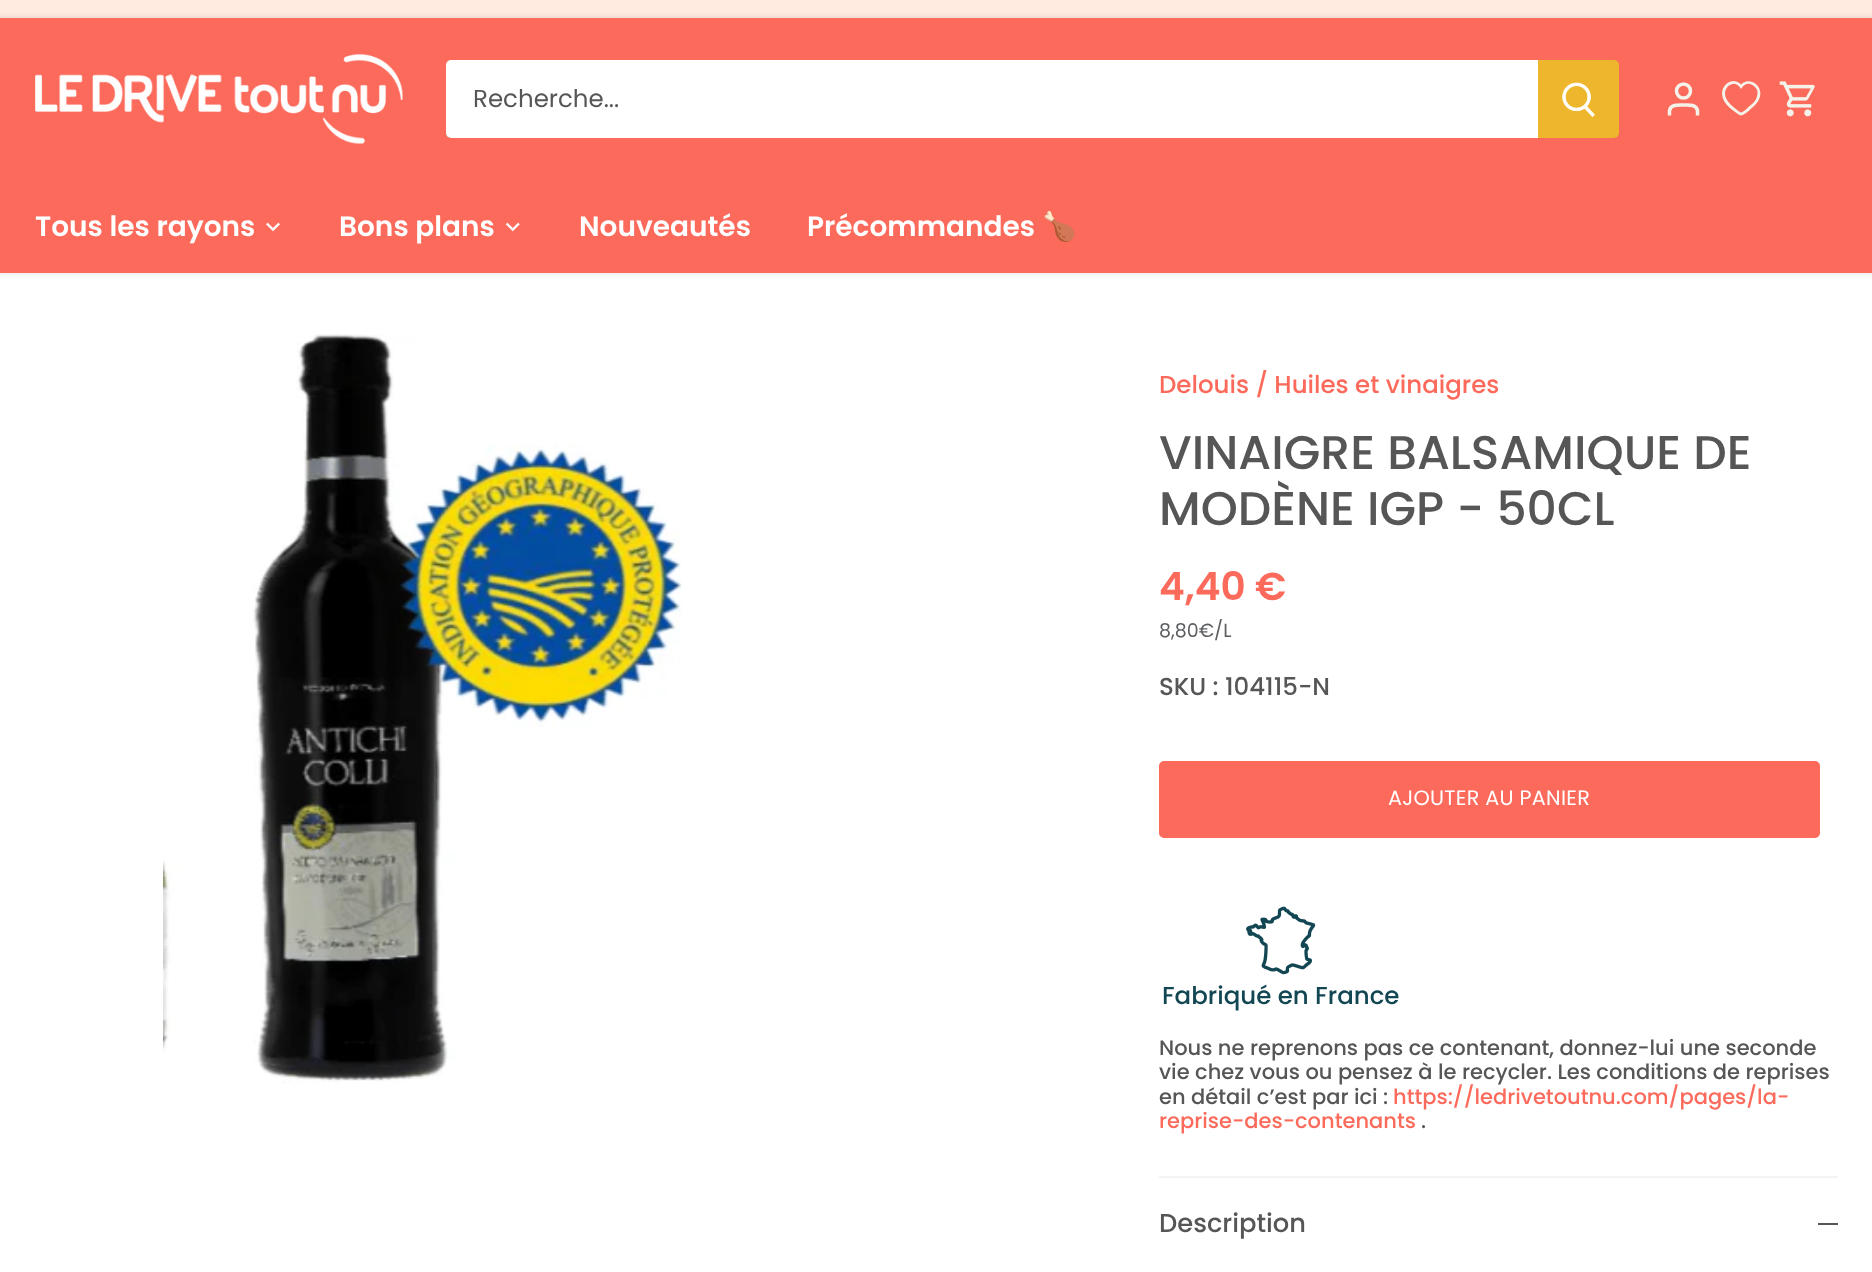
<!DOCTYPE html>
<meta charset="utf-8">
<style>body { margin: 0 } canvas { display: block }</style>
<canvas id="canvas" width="1872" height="1272"></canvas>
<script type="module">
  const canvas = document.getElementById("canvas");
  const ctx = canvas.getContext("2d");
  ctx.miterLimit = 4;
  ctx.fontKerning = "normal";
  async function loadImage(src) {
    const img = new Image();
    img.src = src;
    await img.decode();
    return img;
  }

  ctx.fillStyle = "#ffffff";
  ctx.fillRect(0, 0, 1872, 1272);
  ctx.fillStyle = "#ffebe0";
  ctx.fillRect(0, 0, 1872, 18);
  ctx.fillStyle = "rgba(0, 0, 0, 0.08)";
  ctx.filter = "blur(2.5px)";
  ctx.beginPath();
  ctx.rect(-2, 16, 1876, 259);
  ctx.fill();
  ctx.filter = "none";
  ctx.fillStyle = "#fc6a5b";
  ctx.fillRect(0, 18, 1872, 255);
  ctx.drawImage(await loadImage("img1.png"), 35, 54, 368, 90);
  ctx.fillStyle = "#ffffff";
  ctx.beginPath();
  ctx.roundRect(446, 60, 1094, 78, [5, 0, 0, 5]);
  ctx.fill();
  ctx.font = "24.5px Poppins";
  ctx.fillStyle = "#565656";
  ctx.fillText("Recherche...", 473, 107);
  ctx.fillStyle = "#edb62c";
  ctx.beginPath();
  ctx.roundRect(1538, 60, 81, 78, [0, 5, 5, 0]);
  ctx.fill();
  ctx.drawImage(await loadImage("img2.png"), 1562, 82, 33, 35);
  ctx.beginPath();
  ctx.arc(1683.5, 91, 7, 0, Math.PI * 2);
  ctx.strokeStyle = "#f4f2e9";
  ctx.lineWidth = 3.5;
  ctx.stroke();
  ctx.beginPath();
  ctx.moveTo(1697.5, 115.5);
  ctx.lineTo(1697.5, 110.5);
  ctx.bezierCurveTo(1696, 104, 1688.5, 105, 1683.5, 105);
  ctx.bezierCurveTo(1678.5, 105, 1671, 104, 1669.5, 110.5);
  ctx.lineTo(1669.5, 115.5);
  ctx.stroke();
  ctx.beginPath();
  ctx.moveTo(1741, 114);
  ctx.bezierCurveTo(1739.5, 114, 1735, 110, 1733.5, 109);
  ctx.bezierCurveTo(1729.5, 106, 1725.5, 102, 1724, 97);
  ctx.bezierCurveTo(1720.5, 86, 1734, 77, 1741, 86.5);
  ctx.bezierCurveTo(1748, 77.5, 1761.5, 85.5, 1758.5, 96.5);
  ctx.bezierCurveTo(1757.5, 101.5, 1753, 105.5, 1749, 108.5);
  ctx.bezierCurveTo(1748.5, 109.5, 1743, 114, 1741, 114);
  ctx.closePath();
  ctx.lineWidth = 2.9;
  ctx.stroke();
  ctx.drawImage(await loadImage("img3.png"), 1779, 81, 36, 36);
  ctx.font = "600 28px Poppins";
  ctx.fillStyle = "#ffffff";
  ctx.fillText("Tous les rayons", 35, 236);
  ctx.drawImage(await loadImage("img4.png"), 266, 222, 14, 10);
  ctx.fillText("Bons plans", 339, 236);
  ctx.drawImage(await loadImage("img5.png"), 505, 222, 15, 10);
  ctx.fillText("Nouveautés", 579, 236);
  ctx.fillText("Précommandes", 807, 236);
  ctx.font = "bold 28px Noto Color Emoji";
  ctx.fillText("🍗", 1042, 236);
  ctx.drawImage(await loadImage("img6.png"), 163, 334, 519, 749);
  ctx.font = "500 24.5px Poppins";
  ctx.fillStyle = "#fc6a5b";
  ctx.fillText("Delouis / Huiles et vinaigres", 1159, 393);
  ctx.font = "500 47.25px Poppins";
  ctx.fillStyle = "#565656";
  ctx.fillText("VINAIGRE BALSAMIQUE DE", 1159, 469);
  ctx.fillText("MODÈNE IGP - 50CL", 1159, 525);
  ctx.font = "600 39px Poppins";
  ctx.fillStyle = "#fc6a5b";
  ctx.fillText("4,40 €", 1159, 600);
  ctx.font = "19px Poppins";
  ctx.fillStyle = "#5c5e61";
  ctx.fillText("8,80€/L", 1159, 637);
  ctx.font = "500 24.5px Poppins";
  ctx.fillStyle = "#565656";
  ctx.fillText("SKU : 104115-N", 1159, 695);
  ctx.fillStyle = "#fc6a5b";
  ctx.beginPath();
  ctx.roundRect(1161, 763, 657, 73, 3);
  ctx.fill();
  ctx.strokeStyle = "#fc6a5b";
  ctx.lineWidth = 4;
  ctx.stroke();
  ctx.letterSpacing = "0.25px";
  ctx.font = "20.75px Poppins";
  ctx.fillStyle = "#ffffff";
  ctx.fillText("AJOUTER AU PANIER", 1388, 805);
  ctx.drawImage(await loadImage("img7.png"), 1246, 906, 70, 69);
  ctx.letterSpacing = "0px";
  ctx.font = "500 24.5px Poppins";
  ctx.fillStyle = "#124653";
  ctx.fillText("Fabriqué en France", 1162, 1004);
  ctx.font = "500 21px Poppins";
  ctx.fillStyle = "#565656";
  ctx.fillText("Nous ne reprenons pas ce contenant, donnez-lui une seconde", 1159, 1055);
  ctx.fillText("vie chez vous ou pensez à le recycler. Les conditions de reprises", 1159, 1079);
  ctx.fillText("en détail c’est par ici :", 1159, 1104);
  ctx.fillStyle = "#fc6a5b";
  ctx.fillText("https://ledrivetoutnu.com/pages/la-", 1393, 1104);
  ctx.fillText("reprise-des-contenants", 1159, 1128);
  ctx.fillStyle = "#565656";
  ctx.fillText(".", 1421, 1128);
  ctx.fillStyle = "#f4f4f4";
  ctx.fillRect(1159, 1176, 679, 2);
  ctx.font = "500 25.75px Poppins";
  ctx.fillStyle = "#565656";
  ctx.fillText("Description", 1159, 1232);
  ctx.fillRect(1818, 1223, 20, 2);
</script>
